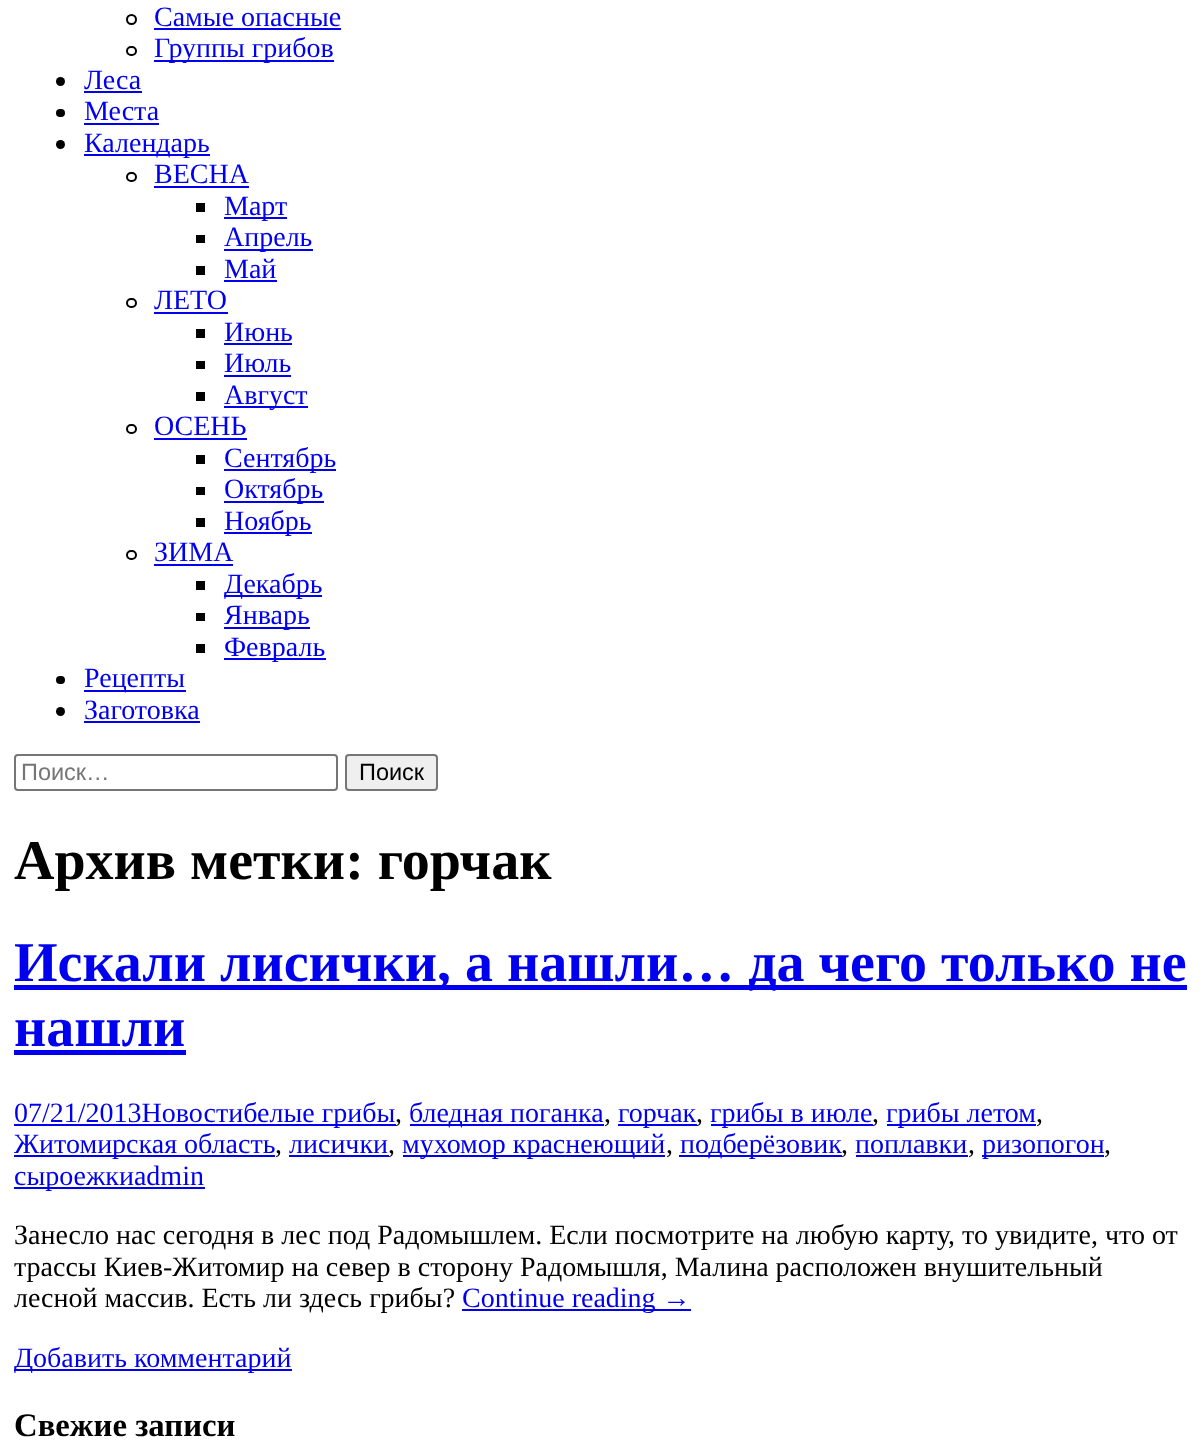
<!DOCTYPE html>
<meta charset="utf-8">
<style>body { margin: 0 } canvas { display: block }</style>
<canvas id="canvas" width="1204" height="1441"></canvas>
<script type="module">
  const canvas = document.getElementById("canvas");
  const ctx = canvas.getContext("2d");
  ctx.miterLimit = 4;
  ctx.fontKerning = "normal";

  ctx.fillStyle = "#ffffff";
  ctx.fillRect(0, 0, 1204, 1441);
  ctx.beginPath();
  ctx.arc(131.5, 19.5, 4.5, 0, Math.PI * 2);
  ctx.strokeStyle = "#000000";
  ctx.lineWidth = 2;
  ctx.stroke();
  ctx.font = "28px Liberation Serif";
  ctx.fillStyle = "#0000ee";
  ctx.fillText("Самые опасные", 154, 26);
  ctx.fillRect(154, 28, 187, 2);
  ctx.beginPath();
  ctx.roundRect(127, 47, 9, 8, 4);
  ctx.stroke();
  ctx.fillRect(154, 60, 180, 2);
  ctx.fillText("Группы грибов", 154, 57);
  ctx.fillStyle = "#000000";
  ctx.beginPath();
  ctx.arc(60.5, 81.5, 4.5, 0, Math.PI * 2);
  ctx.fill();
  ctx.fillStyle = "#0000ee";
  ctx.fillText("Леса", 84, 89);
  ctx.fillRect(84, 91, 58, 2);
  ctx.fillStyle = "#000000";
  ctx.beginPath();
  ctx.roundRect(56, 109, 9, 8, 4);
  ctx.fill();
  ctx.fillStyle = "#0000ee";
  ctx.fillText("Места", 84, 120);
  ctx.fillRect(84, 123, 75, 2);
  ctx.fillStyle = "#000000";
  ctx.beginPath();
  ctx.arc(60.5, 144.5, 4.5, 0, Math.PI * 2);
  ctx.fill();
  ctx.fillStyle = "#0000ee";
  ctx.fillRect(84, 154, 126, 2);
  ctx.fillText("Календарь", 84, 152);
  ctx.beginPath();
  ctx.roundRect(127, 173, 9, 8, 4);
  ctx.stroke();
  ctx.fillText("ВЕСНА", 154, 183);
  ctx.fillRect(154, 186, 95, 2);
  ctx.fillStyle = "#000000";
  ctx.fillRect(196, 203, 9, 9);
  ctx.fillStyle = "#0000ee";
  ctx.fillRect(224, 217, 63, 2);
  ctx.fillText("Март", 224, 215);
  ctx.fillStyle = "#000000";
  ctx.fillRect(196, 235, 9, 8);
  ctx.fillStyle = "#0000ee";
  ctx.fillRect(224, 249, 89, 2);
  ctx.fillText("Апрель", 224, 246);
  ctx.fillStyle = "#000000";
  ctx.fillRect(196, 266, 9, 9);
  ctx.fillStyle = "#0000ee";
  ctx.fillText("Май", 224, 278);
  ctx.fillRect(224, 280, 53, 2);
  ctx.beginPath();
  ctx.roundRect(127, 299, 9, 8, 4);
  ctx.stroke();
  ctx.fillText("ЛЕТО", 154, 309);
  ctx.fillRect(154, 312, 74, 2);
  ctx.fillStyle = "#000000";
  ctx.fillRect(196, 329, 9, 9);
  ctx.fillStyle = "#0000ee";
  ctx.fillText("Июнь", 224, 341);
  ctx.fillRect(224, 343, 68, 2);
  ctx.fillStyle = "#000000";
  ctx.fillRect(196, 361, 9, 8);
  ctx.fillStyle = "#0000ee";
  ctx.fillText("Июль", 224, 372);
  ctx.fillRect(224, 375, 67, 2);
  ctx.fillStyle = "#000000";
  ctx.fillRect(196, 392, 9, 9);
  ctx.fillStyle = "#0000ee";
  ctx.fillRect(224, 406, 84, 2);
  ctx.fillText("Август", 224, 404);
  ctx.beginPath();
  ctx.roundRect(127, 425, 9, 8, 4);
  ctx.stroke();
  ctx.fillText("ОСЕНЬ", 154, 435);
  ctx.fillRect(154, 438, 93, 2);
  ctx.fillStyle = "#000000";
  ctx.fillRect(196, 455, 9, 9);
  ctx.fillStyle = "#0000ee";
  ctx.fillRect(224, 469, 112, 2);
  ctx.fillText("Сентябрь", 224, 467);
  ctx.fillStyle = "#000000";
  ctx.fillRect(196, 487, 9, 8);
  ctx.fillStyle = "#0000ee";
  ctx.fillRect(224, 501, 100, 2);
  ctx.fillText("Октябрь", 224, 498);
  ctx.fillStyle = "#000000";
  ctx.fillRect(196, 518, 9, 9);
  ctx.fillStyle = "#0000ee";
  ctx.fillRect(224, 532, 88, 2);
  ctx.fillText("Ноябрь", 224, 530);
  ctx.beginPath();
  ctx.roundRect(127, 551, 9, 8, 4);
  ctx.stroke();
  ctx.fillText("ЗИМА", 154, 561);
  ctx.fillRect(154, 564, 79, 2);
  ctx.fillStyle = "#000000";
  ctx.fillRect(196, 581, 9, 9);
  ctx.fillStyle = "#0000ee";
  ctx.fillRect(224, 595, 98, 2);
  ctx.fillText("Декабрь", 224, 593);
  ctx.fillStyle = "#000000";
  ctx.fillRect(196, 613, 9, 8);
  ctx.fillStyle = "#0000ee";
  ctx.fillRect(224, 627, 86, 2);
  ctx.fillText("Январь", 224, 624);
  ctx.fillStyle = "#000000";
  ctx.fillRect(196, 644, 9, 9);
  ctx.fillStyle = "#0000ee";
  ctx.fillRect(224, 658, 102, 2);
  ctx.fillText("Февраль", 224, 656);
  ctx.fillStyle = "#000000";
  ctx.beginPath();
  ctx.roundRect(56, 676, 9, 8, 4);
  ctx.fill();
  ctx.fillStyle = "#0000ee";
  ctx.fillRect(84, 690, 102, 2);
  ctx.fillText("Рецепты", 84, 687);
  ctx.fillStyle = "#000000";
  ctx.beginPath();
  ctx.arc(60.5, 711.5, 4.5, 0, Math.PI * 2);
  ctx.fill();
  ctx.fillStyle = "#0000ee";
  ctx.fillText("Заготовка", 84, 719);
  ctx.fillRect(84, 721, 116, 2);
  ctx.beginPath();
  ctx.roundRect(15, 755, 322, 35, 3);
  ctx.strokeStyle = "#767676";
  ctx.stroke();
  ctx.font = "23.5px Liberation Sans";
  ctx.fillStyle = "#757575";
  ctx.fillText("Поиск…", 21, 780);
  ctx.fillStyle = "#efefef";
  ctx.beginPath();
  ctx.roundRect(346, 755, 91, 35, 3);
  ctx.fill();
  ctx.stroke();
  ctx.fillStyle = "#000000";
  ctx.fillText("Поиск", 359, 780);
  ctx.font = "bold 56px Liberation Serif";
  ctx.fillText("Архив метки: горчак", 14, 879);
  ctx.fillStyle = "#0000ee";
  ctx.fillRect(14, 985, 1173, 5);
  ctx.fillText("Искали лисички, а нашли… да чего только не", 14, 981);
  ctx.fillText("нашли", 14, 1046);
  ctx.fillRect(14, 1050, 172, 5);
  ctx.fillRect(14, 1124, 382, 2);
  ctx.font = "28px Liberation Serif";
  ctx.fillText("07/21/2013Новостибелые грибы", 14, 1122);
  ctx.fillStyle = "#000000";
  ctx.fillText(",", 395, 1122);
  ctx.fillStyle = "#0000ee";
  ctx.fillRect(410, 1124, 194, 2);
  ctx.fillText("бледная поганка", 409, 1122);
  ctx.fillStyle = "#000000";
  ctx.fillText(",", 604, 1122);
  ctx.fillStyle = "#0000ee";
  ctx.fillRect(618, 1124, 79, 2);
  ctx.fillText("горчак", 618, 1122);
  ctx.fillStyle = "#000000";
  ctx.fillText(",", 696, 1122);
  ctx.fillStyle = "#0000ee";
  ctx.fillRect(711, 1124, 162, 2);
  ctx.fillText("грибы в июле", 710, 1122);
  ctx.fillStyle = "#000000";
  ctx.fillText(",", 872, 1122);
  ctx.fillStyle = "#0000ee";
  ctx.fillRect(887, 1124, 149, 2);
  ctx.fillText("грибы летом", 886, 1122);
  ctx.fillStyle = "#000000";
  ctx.fillText(",", 1036, 1122);
  ctx.fillStyle = "#0000ee";
  ctx.fillRect(14, 1155, 261, 2);
  ctx.fillText("Житомирская область", 14, 1153);
  ctx.fillStyle = "#000000";
  ctx.fillText(",", 275, 1153);
  ctx.fillStyle = "#0000ee";
  ctx.fillText("лисички", 289, 1153);
  ctx.fillStyle = "#000000";
  ctx.fillText(",", 388, 1153);
  ctx.fillStyle = "#0000ee";
  ctx.fillRect(289, 1155, 100, 2);
  ctx.fillRect(403, 1155, 262, 2);
  ctx.fillText("мухомор краснеющий", 402, 1153);
  ctx.fillStyle = "#000000";
  ctx.fillText(",", 666, 1153);
  ctx.fillStyle = "#0000ee";
  ctx.fillRect(679, 1155, 163, 2);
  ctx.fillText("подберёзовик", 680, 1153);
  ctx.fillStyle = "#000000";
  ctx.fillText(",", 841, 1153);
  ctx.fillStyle = "#0000ee";
  ctx.fillText("поплавки", 855, 1153);
  ctx.fillStyle = "#000000";
  ctx.fillText(",", 968, 1153);
  ctx.fillStyle = "#0000ee";
  ctx.fillRect(856, 1155, 112, 2);
  ctx.fillRect(982, 1155, 122, 2);
  ctx.fillText("ризопогон", 982, 1153);
  ctx.fillStyle = "#000000";
  ctx.fillText(",", 1104, 1153);
  ctx.fillStyle = "#0000ee";
  ctx.fillRect(14, 1187, 191, 2);
  ctx.fillText("сыроежкиadmin", 14, 1185);
  ctx.fillStyle = "#000000";
  ctx.fillText("Занесло нас сегодня в лес под Радомышлем. Если посмотрите на любую карту, то увидите, что от", 14, 1244);
  ctx.fillText("трассы Киев-Житомир на север в сторону Радомышля, Малина расположен внушительный", 14, 1276);
  ctx.fillText("лесной массив. Есть ли здесь грибы?", 14, 1307);
  ctx.fillStyle = "#0000ee";
  ctx.fillRect(462, 1309, 229, 2);
  ctx.fillText("Continue reading →", 462, 1307);
  ctx.fillRect(14, 1369, 278, 2);
  ctx.fillText("Добавить комментарий", 14, 1367);
  ctx.font = "bold 32.75px Liberation Serif";
  ctx.fillStyle = "#000000";
  ctx.fillText("Свежие записи", 14, 1436);
</script>
